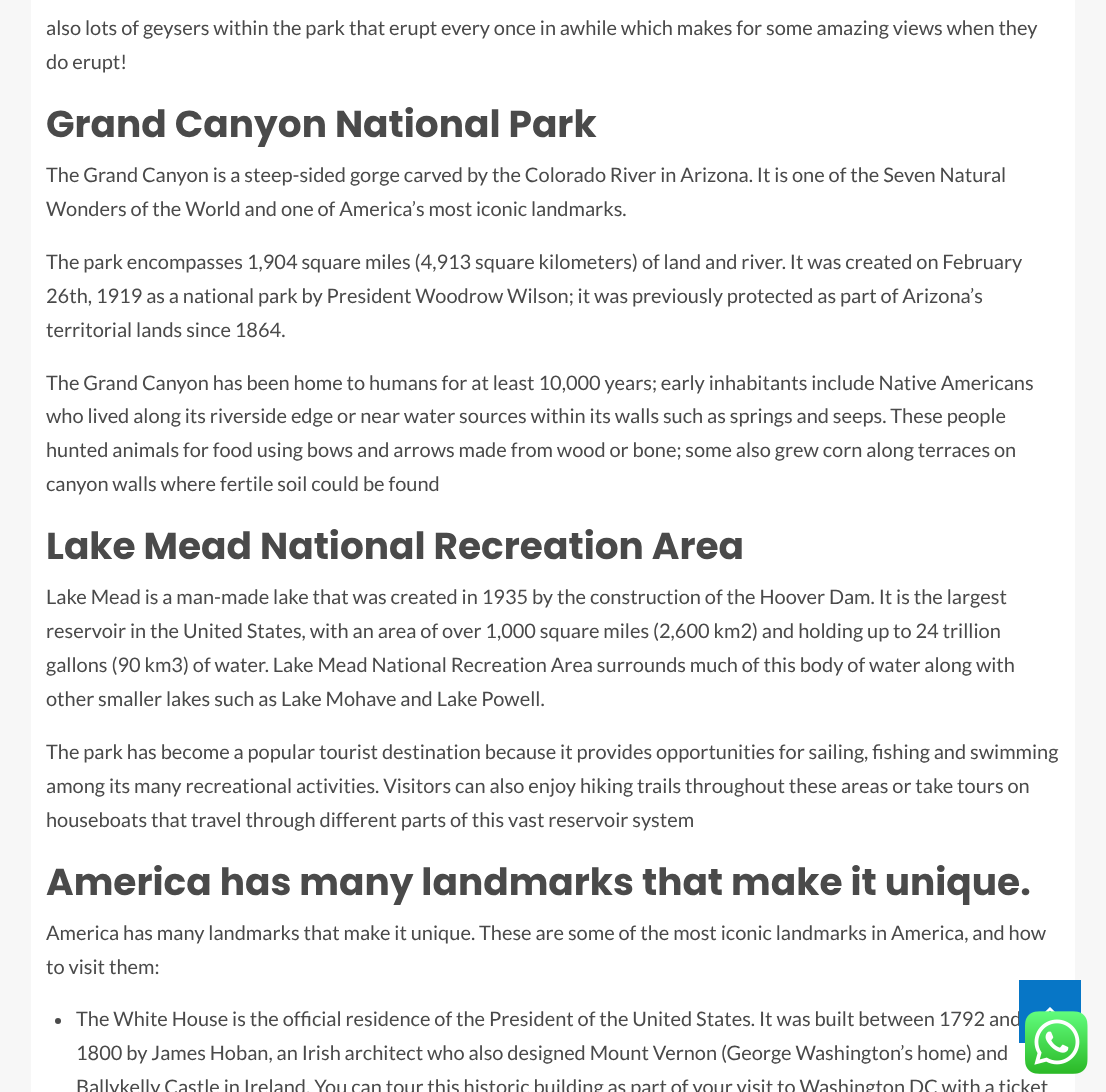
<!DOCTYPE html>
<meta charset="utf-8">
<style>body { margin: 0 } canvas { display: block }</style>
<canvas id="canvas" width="1106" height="1092"></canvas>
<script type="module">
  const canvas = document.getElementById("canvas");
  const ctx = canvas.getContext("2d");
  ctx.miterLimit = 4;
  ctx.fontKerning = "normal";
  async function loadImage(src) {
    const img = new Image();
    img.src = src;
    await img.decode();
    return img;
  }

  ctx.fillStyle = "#f7f7f7";
  ctx.fillRect(0, 0, 1106, 1092);
  ctx.fillStyle = "#ffffff";
  ctx.fillRect(31, 0, 1044, 1092);
  ctx.font = "20px Lato";
  ctx.fillStyle = "#4a4a4a";
  ctx.fillText("also lots of geysers within the park that erupt every once in awhile which makes for some amazing views when they", 46, 35);
  ctx.fillText("do erupt!", 46, 69);
  ctx.font = "bold 37.5px Poppins";
  ctx.fillText("Grand Canyon National Park", 46, 137);
  ctx.font = "20px Lato";
  ctx.fillText("The Grand Canyon is a steep-sided gorge carved by the Colorado River in Arizona. It is one of the Seven Natural", 46, 182);
  ctx.fillText("Wonders of the World and one of America’s most iconic landmarks.", 46, 216);
  ctx.fillText("The park encompasses 1,904 square miles (4,913 square kilometers) of land and river. It was created on February", 46, 269);
  ctx.fillText("26th, 1919 as a national park by President Woodrow Wilson; it was previously protected as part of Arizona’s", 46, 303);
  ctx.fillText("territorial lands since 1864.", 46, 337);
  ctx.fillText("The Grand Canyon has been home to humans for at least 10,000 years; early inhabitants include Native Americans", 46, 390);
  ctx.fillText("who lived along its riverside edge or near water sources within its walls such as springs and seeps. These people", 46, 423);
  ctx.fillText("hunted animals for food using bows and arrows made from wood or bone; some also grew corn along terraces on", 46, 457);
  ctx.fillText("canyon walls where fertile soil could be found", 46, 491);
  ctx.font = "bold 37.5px Poppins";
  ctx.fillText("Lake Mead National Recreation Area", 46, 559);
  ctx.font = "20px Lato";
  ctx.fillText("Lake Mead is a man-made lake that was created in 1935 by the construction of the Hoover Dam. It is the largest", 46, 604);
  ctx.fillText("reservoir in the United States, with an area of over 1,000 square miles (2,600 km2) and holding up to 24 trillion", 46, 638);
  ctx.fillText("gallons (90 km3) of water. Lake Mead National Recreation Area surrounds much of this body of water along with", 46, 672);
  ctx.fillText("other smaller lakes such as Lake Mohave and Lake Powell.", 46, 706);
  ctx.fillText("The park has become a popular tourist destination because it provides opportunities for sailing, fishing and swimming", 46, 759);
  ctx.fillText("among its many recreational activities. Visitors can also enjoy hiking trails throughout these areas or take tours on", 46, 793);
  ctx.fillText("houseboats that travel through different parts of this vast reservoir system", 46, 827);
  ctx.font = "bold 37.5px Poppins";
  ctx.fillText("America has many landmarks that make it unique.", 46, 895);
  ctx.font = "20px Lato";
  ctx.fillText("America has many landmarks that make it unique. These are some of the most iconic landmarks in America, and how", 46, 940);
  ctx.fillText("to visit them:", 46, 974);
  ctx.beginPath();
  ctx.arc(58, 1021, 3, 0, Math.PI * 2);
  ctx.fill();
  ctx.fillText("The White House is the official residence of the President of the United States. It was built between 1792 and", 76, 1026);
  ctx.fillText("1800 by James Hoban, an Irish architect who also designed Mount Vernon (George Washington’s home) and", 76, 1060);
  ctx.fillText("Ballykelly Castle in Ireland. You can tour this historic building as part of your visit to Washington DC with a ticket", 76, 1094);
  ctx.fillStyle = "#0776c6";
  ctx.fillRect(1019, 980, 62, 63);
  ctx.drawImage(await loadImage("img1.png"), 1045, 1007, 10, 5);
  ctx.drawImage(await loadImage("img2.png"), 1025, 1011, 63, 63);
</script>
